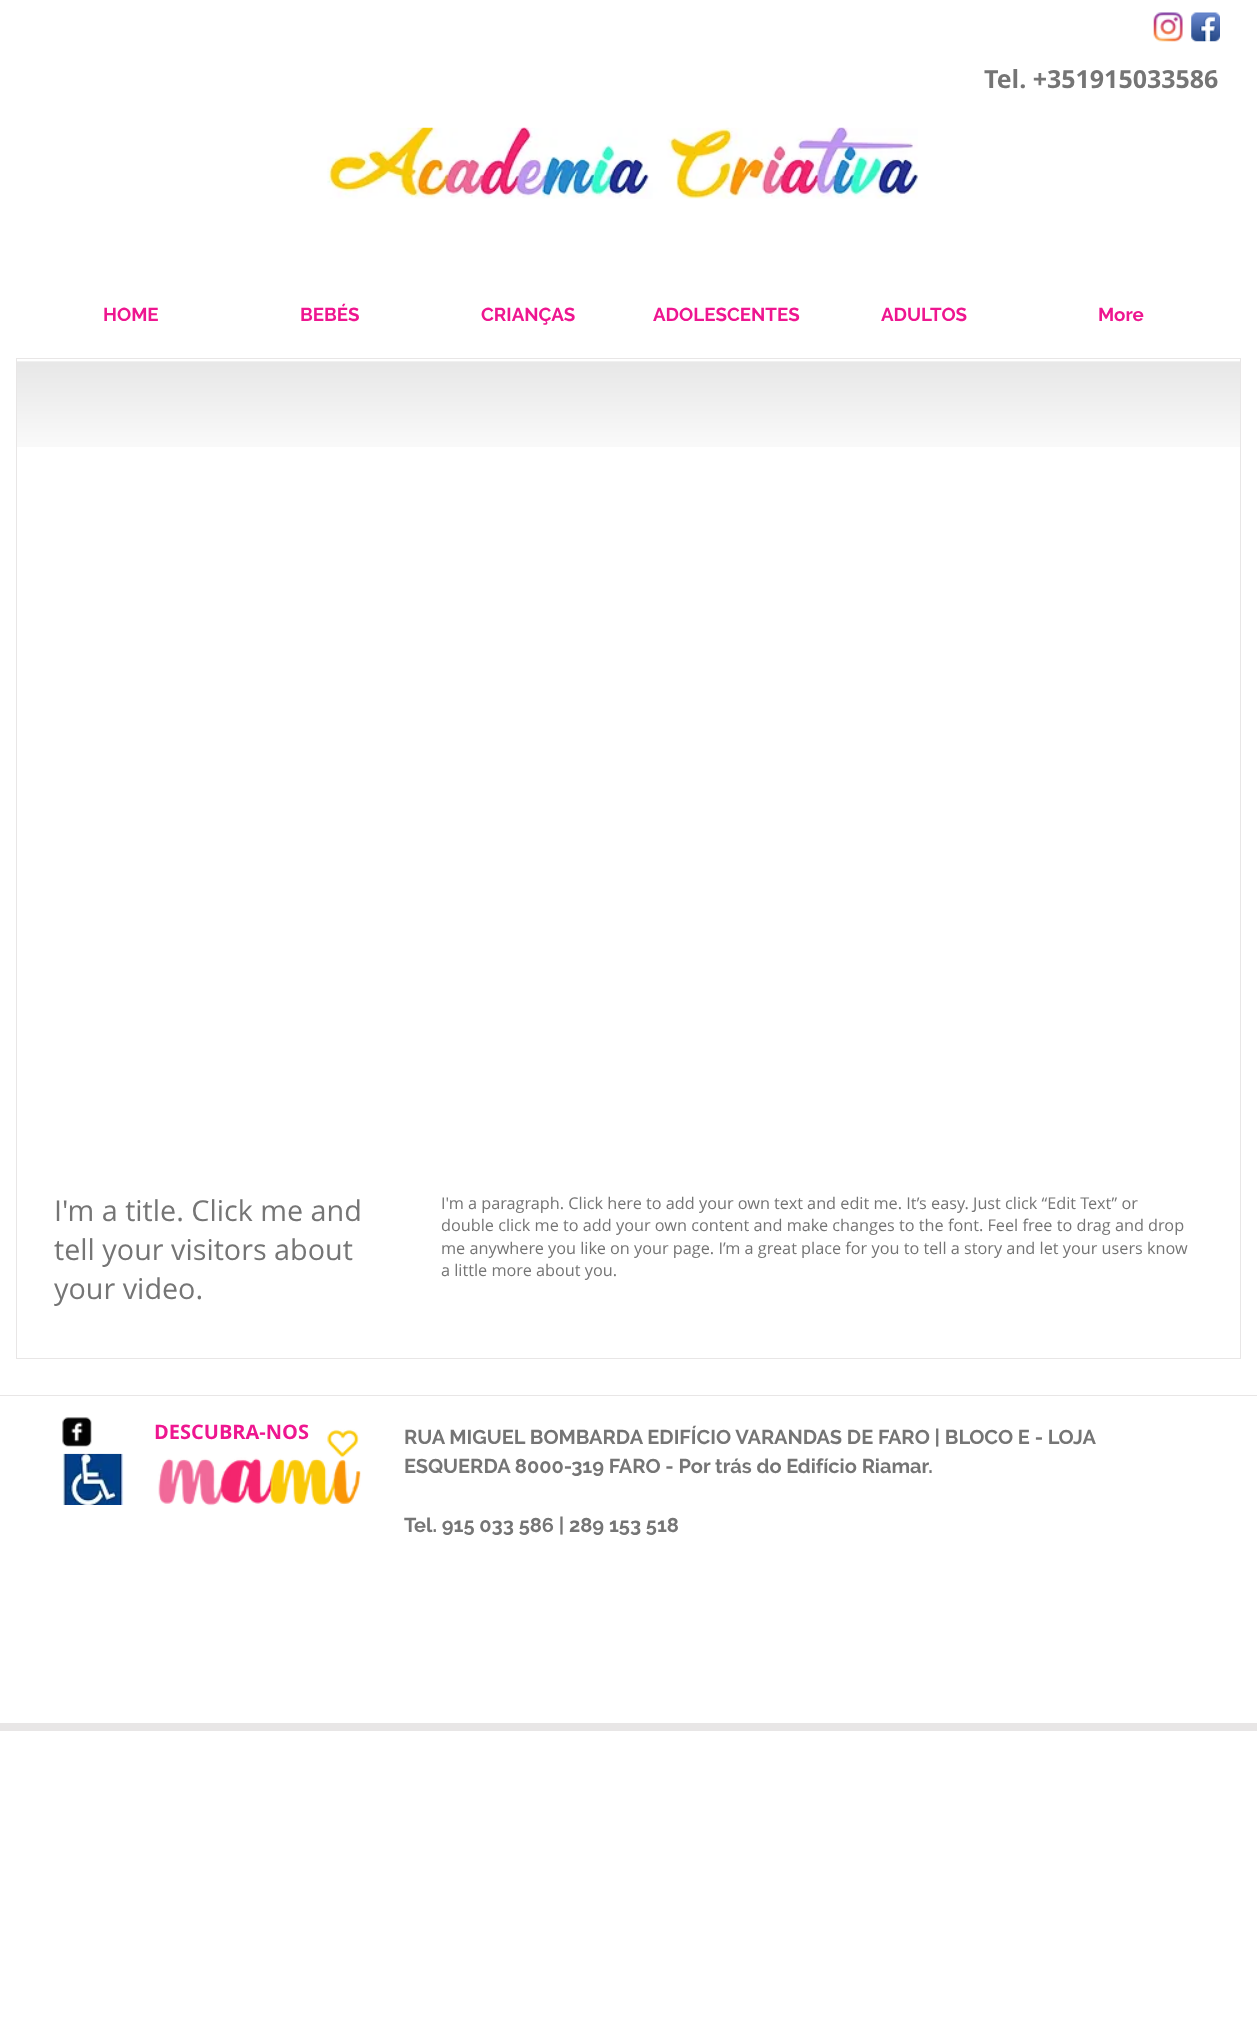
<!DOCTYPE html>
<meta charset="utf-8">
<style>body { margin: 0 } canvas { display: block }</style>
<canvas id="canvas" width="1257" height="2044"></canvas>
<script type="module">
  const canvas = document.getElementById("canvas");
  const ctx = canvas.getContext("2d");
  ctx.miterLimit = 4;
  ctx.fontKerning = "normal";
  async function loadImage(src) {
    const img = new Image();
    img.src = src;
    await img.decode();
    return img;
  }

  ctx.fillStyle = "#ffffff";
  ctx.fillRect(0, 0, 1257, 2044);
  ctx.drawImage(await loadImage("img1.png"), 1153, 12, 30, 30);
  ctx.drawImage(await loadImage("img2.png"), 1191, 12, 29, 30);
  ctx.font = "bold 25px Open Sans";
  ctx.fillStyle = "#757575";
  ctx.fillText("Tel. +351915033586", 984, 88);
  ctx.drawImage(await loadImage("img3.png"), 327, 127, 591, 72);
  ctx.font = "bold 18.75px Raleway";
  ctx.fillStyle = "#ee1690";
  ctx.fillText("HOME", 103, 321);
  ctx.fillText("BEBÉS", 300, 321);
  ctx.fillText("CRIANÇAS", 481, 321);
  ctx.fillText("ADOLESCENTES", 653, 321);
  ctx.fillText("ADULTOS", 881, 321);
  ctx.fillText("More", 1098, 321);
  ctx.drawImage(await loadImage("img4.png"), 17, 361, 1223, 86);
  ctx.strokeStyle = "#e8e6e6";
  ctx.strokeRect(16.5, 358.5, 1224, 1000);
  ctx.font = "28.75px Open Sans";
  ctx.fillStyle = "#757575";
  ctx.fillText("I'm a title. Click me and", 54, 1221);
  ctx.fillText("tell your visitors about", 54, 1260);
  ctx.fillText("your video.", 54, 1299);
  ctx.font = "16.25px Open Sans";
  ctx.fillText("I'm a paragraph. Click here to add your own text and edit me. It’s easy. Just click “Edit Text” or", 441, 1209);
  ctx.fillText("double click me to add your own content and make changes to the font. Feel free to drag and drop", 441, 1231);
  ctx.fillText("me anywhere you like on your page. I’m a great place for you to tell a story and let your users know", 441, 1254);
  ctx.fillText("a little more about you.", 441, 1276);
  ctx.fillStyle = "#e8e6e6";
  ctx.fillRect(0, 1395, 1257, 1);
  ctx.fillRect(0, 1723, 1257, 8);
  ctx.drawImage(await loadImage("img5.png"), 62, 1417, 30, 30);
  ctx.font = "bold 20px Open Sans";
  ctx.fillStyle = "#ee1690";
  ctx.fillText("DESCUBRA-NOS", 154, 1439);
  ctx.font = "bold 20px 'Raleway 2'";
  ctx.fillStyle = "#757575";
  ctx.fillText("RUA MIGUEL BOMBARDA EDIFÍCIO VARANDAS DE FARO | BLOCO E - LOJA", 404, 1444);
  ctx.fillText("ESQUERDA 8000-319 FARO - Por trás do Edifício Riamar.", 404, 1473);
  ctx.fillText("Tel. 915 033 586 | 289 153 518", 404, 1532);
  ctx.drawImage(await loadImage("img6.png"), 62, 1453, 62, 52);
  ctx.drawImage(await loadImage("img7.png"), 158, 1429, 203, 77);
</script>
